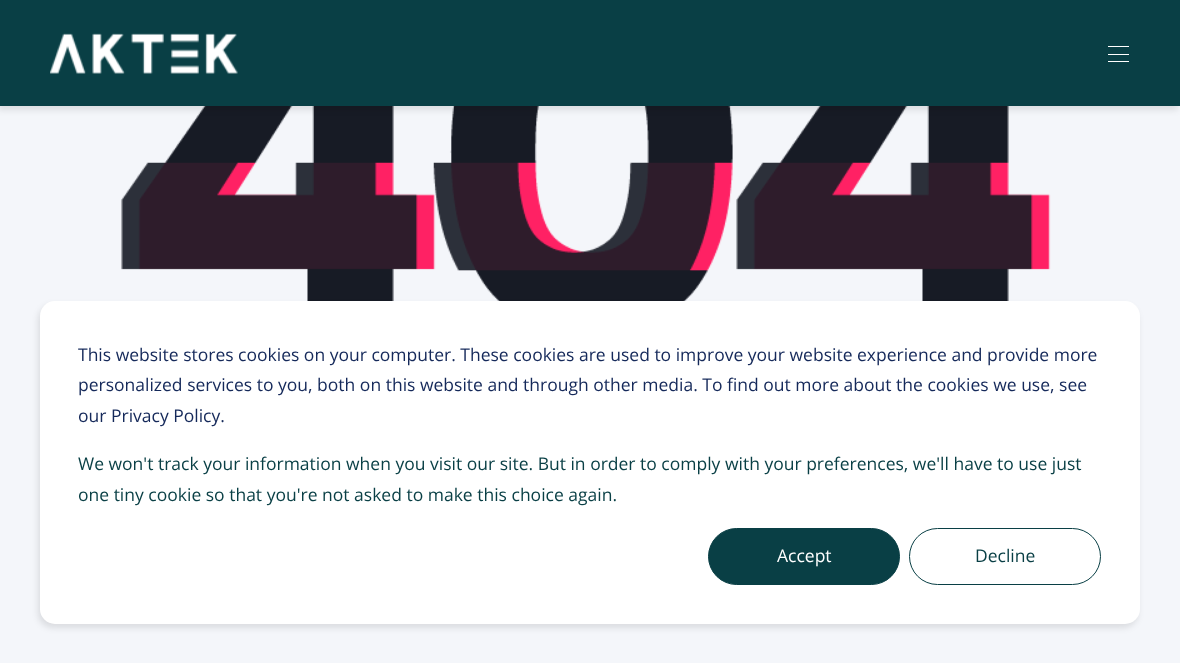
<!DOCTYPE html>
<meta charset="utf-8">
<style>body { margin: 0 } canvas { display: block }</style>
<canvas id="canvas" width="1180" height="663"></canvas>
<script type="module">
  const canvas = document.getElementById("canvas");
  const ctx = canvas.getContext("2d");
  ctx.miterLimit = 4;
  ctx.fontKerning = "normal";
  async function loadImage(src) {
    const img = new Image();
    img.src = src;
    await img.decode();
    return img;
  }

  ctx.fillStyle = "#f4f6fa";
  ctx.fillRect(0, 0, 1180, 663);
  ctx.drawImage(await loadImage("img2.png"), 121, 106, 930, 195);
  ctx.fillStyle = "rgba(0, 0, 0, 0.1)";
  ctx.filter = "blur(3px)";
  ctx.beginPath();
  ctx.rect(-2, 4, 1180, 106);
  ctx.fill();
  ctx.filter = "none";
  ctx.fillStyle = "#093f45";
  ctx.fillRect(0, 0, 1180, 106);
  ctx.drawImage(await loadImage("img1.png"), 50, 33, 188, 41);
  ctx.fillStyle = "#ffffff";
  ctx.fillRect(1108, 46, 21, 1);
  ctx.fillRect(1108, 54, 21, 1);
  ctx.fillRect(1108, 61, 21, 1);
  ctx.fillStyle = "rgba(0, 0, 0, 0.1)";
  ctx.filter = "blur(3px)";
  ctx.beginPath();
  ctx.roundRect(38, 305, 1100, 323, 15);
  ctx.fill();
  ctx.filter = "none";
  ctx.fillStyle = "#ffffff";
  ctx.beginPath();
  ctx.roundRect(40, 301, 1100, 323, 15);
  ctx.fill();
  ctx.font = "17.5px Open Sans";
  ctx.fillStyle = "#15295a";
  ctx.fillText("This website stores cookies on your computer. These cookies are used to improve your website experience and provide more", 78, 361);
  ctx.fillText("personalized services to you, both on this website and through other media. To find out more about the cookies we use, see", 78, 391);
  ctx.fillText("our Privacy Policy.", 78, 422);
  ctx.fillStyle = "#093f45";
  ctx.fillText("We won't track your information when you visit our site. But in order to comply with your preferences, we'll have to use just", 78, 470);
  ctx.fillText("one tiny cookie so that you're not asked to make this choice again.", 78, 501);
  ctx.beginPath();
  ctx.roundRect(708.5, 528.5, 191, 56, 28);
  ctx.fill();
  ctx.strokeStyle = "#093f45";
  ctx.stroke();
  ctx.fillStyle = "#ffffff";
  ctx.fillText("Accept", 777, 562);
  ctx.beginPath();
  ctx.roundRect(909.5, 528.5, 191, 56, 28);
  ctx.stroke();
  ctx.fillStyle = "#093f45";
  ctx.fillText("Decline", 975, 562);
</script>
